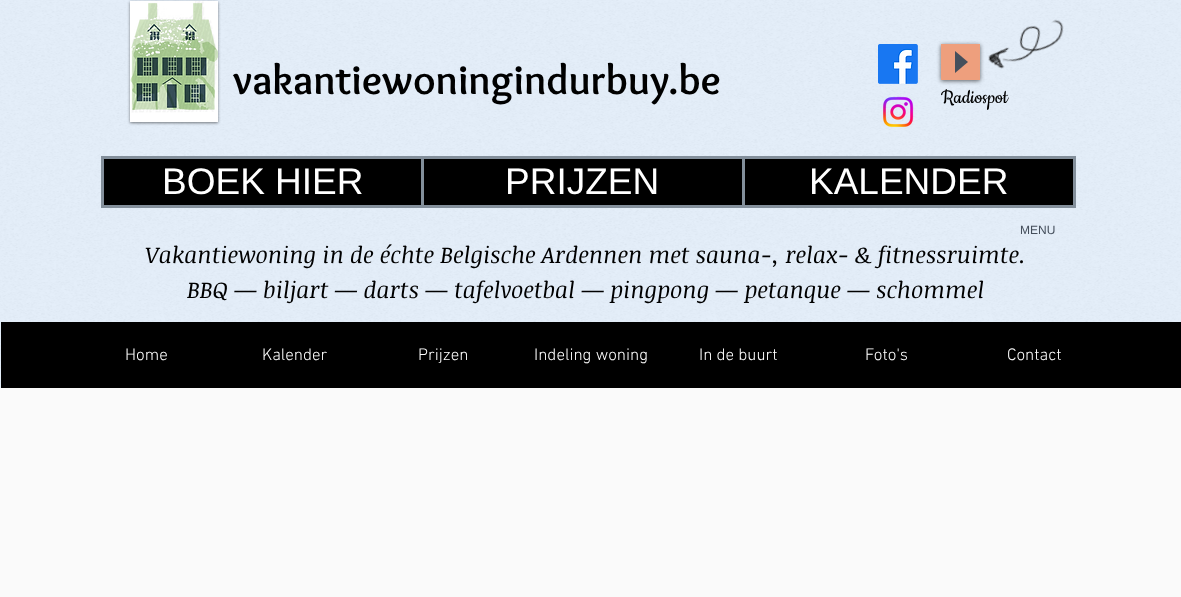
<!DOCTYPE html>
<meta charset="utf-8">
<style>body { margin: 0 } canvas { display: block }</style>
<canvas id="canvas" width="1181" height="597"></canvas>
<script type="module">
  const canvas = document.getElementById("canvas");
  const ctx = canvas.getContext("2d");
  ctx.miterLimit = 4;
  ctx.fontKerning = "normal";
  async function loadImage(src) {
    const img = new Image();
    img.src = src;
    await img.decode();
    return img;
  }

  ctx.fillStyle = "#e3edf9";
  ctx.fillRect(0, 0, 1181, 597);
  ctx.drawImage(await loadImage("img1.png"), 0, 0, 1181, 388);
  ctx.fillStyle = "rgba(0, 0, 0, 0.5)";
  ctx.filter = "blur(1.5px)";
  ctx.beginPath();
  ctx.rect(130, 2, 88, 121);
  ctx.fill();
  ctx.filter = "none";
  ctx.fillStyle = "#ffffff";
  ctx.fillRect(130, 1, 88, 121);
  ctx.drawImage(await loadImage("img2.png"), 130, 1, 88, 112);
  ctx.font = "bold 42px Overlock";
  ctx.fillStyle = "#000000";
  ctx.fillText("vakantiewoningindurbuy.be", 233, 94);
  ctx.drawImage(await loadImage("img3.png"), 878, 44, 40, 40);
  ctx.drawImage(await loadImage("img4.png"), 883, 96, 31, 31);
  ctx.fillStyle = "rgba(0, 0, 0, 0.6)";
  ctx.filter = "blur(2px)";
  ctx.beginPath();
  ctx.rect(941, 45, 39, 36);
  ctx.fill();
  ctx.filter = "none";
  ctx.fillStyle = "#ee9f7d";
  ctx.fillRect(941, 44, 39, 36);
  ctx.fillStyle = "#454f5c";
  ctx.beginPath();
  ctx.moveTo(955, 73);
  ctx.lineTo(955, 51);
  ctx.lineTo(968, 62);
  ctx.closePath();
  ctx.fill();
  ctx.drawImage(await loadImage("img5.png"), 988, 19, 76, 50);
  ctx.font = "22px Cookie";
  ctx.fillStyle = "#000000";
  ctx.fillText("Radiospot", 941, 103);
  ctx.fillRect(104, 159, 317, 46);
  ctx.strokeStyle = "#838f9b";
  ctx.lineWidth = 3;
  ctx.strokeRect(102.5, 157.5, 321, 49);
  ctx.font = "37px Liberation Sans";
  ctx.fillStyle = "#ffffff";
  ctx.fillText("BOEK HIER", 162, 194);
  ctx.fillStyle = "#000000";
  ctx.beginPath();
  ctx.rect(422.5, 157.5, 321, 49);
  ctx.fill();
  ctx.stroke();
  ctx.fillStyle = "#ffffff";
  ctx.fillText("PRIJZEN", 505, 194);
  ctx.fillStyle = "#000000";
  ctx.beginPath();
  ctx.rect(743.5, 157.5, 331, 49);
  ctx.fill();
  ctx.stroke();
  ctx.fillStyle = "#ffffff";
  ctx.fillText("KALENDER", 809, 194);
  ctx.font = "12px Liberation Sans";
  ctx.fillStyle = "#454f5c";
  ctx.fillText("MENU", 1020, 234);
  ctx.font = "italic 23px Noticia Text";
  ctx.fillStyle = "#000000";
  ctx.fillText("Vakantiewoning in de échte Belgische Ardennen met sauna-, relax- & fitnessruimte.", 145, 263);
  ctx.fillText("BBQ — biljart — darts — tafelvoetbal — pingpong — petanque — schommel", 187, 298);
  ctx.fillRect(1, 322, 1180, 66);
  ctx.font = "300 17px 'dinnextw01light'";
  ctx.fillStyle = "#ffffff";
  ctx.fillText("Home", 125, 360);
  ctx.fillText("Kalender", 262, 360);
  ctx.fillText("Prijzen", 418, 360);
  ctx.fillText("Indeling woning", 534, 360);
  ctx.fillText("In de buurt", 699, 360);
  ctx.fillText("Foto's", 865, 360);
  ctx.fillText("Contact", 1007, 360);
  ctx.fillStyle = "#fafafa";
  ctx.fillRect(0, 388, 1181, 209);
</script>
